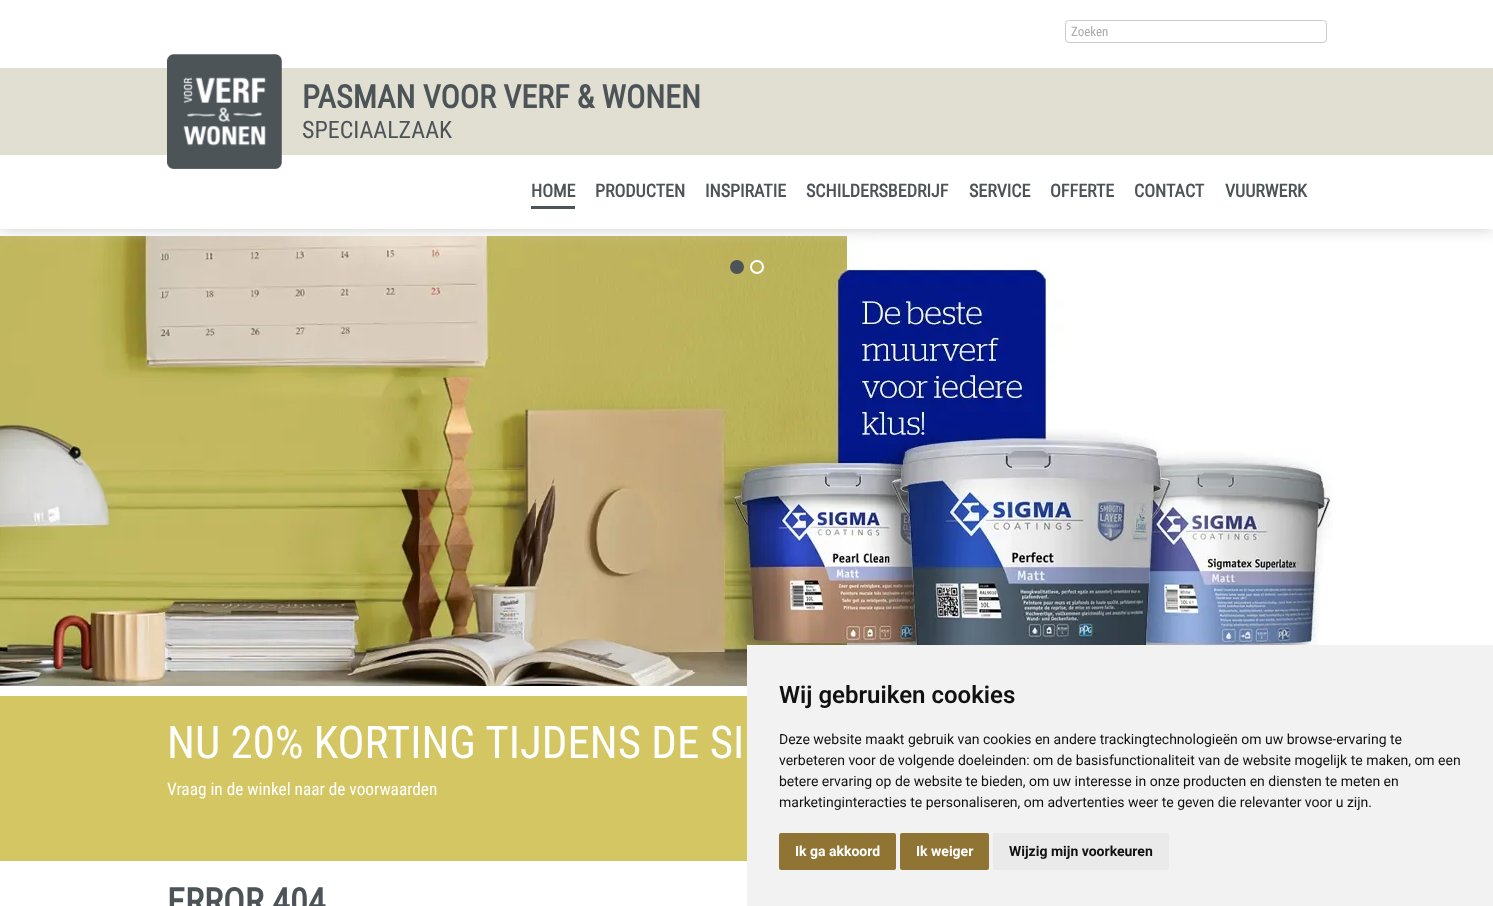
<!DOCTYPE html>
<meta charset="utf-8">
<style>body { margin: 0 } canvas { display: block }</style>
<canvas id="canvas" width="1493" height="906"></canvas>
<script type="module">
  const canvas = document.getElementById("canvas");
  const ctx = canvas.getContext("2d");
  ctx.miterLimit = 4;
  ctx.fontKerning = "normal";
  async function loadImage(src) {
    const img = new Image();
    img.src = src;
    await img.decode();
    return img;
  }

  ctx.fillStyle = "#ffffff";
  ctx.fillRect(0, 0, 1493, 906);
  ctx.drawImage(await loadImage("img2.png"), 0, 236, 1333, 450);
  ctx.save();
  ctx.beginPath();
  ctx.rect(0, 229, 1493, 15);
  ctx.clip();
  ctx.fillStyle = "#cccccc";
  ctx.filter = "blur(7.5px)";
  ctx.beginPath();
  ctx.rect(0, 0, 1493, 229);
  ctx.fill();
  ctx.filter = "none";
  ctx.restore();
  ctx.beginPath();
  ctx.roundRect(1065.5, 20.5, 261, 22, 3.5);
  ctx.strokeStyle = "#cccccc";
  ctx.stroke();
  ctx.font = "13px Roboto Condensed";
  ctx.fillStyle = "#aaaaaa";
  ctx.fillText("Zoeken", 1071, 36);
  ctx.fillStyle = "#e1ded2";
  ctx.fillRect(0, 68, 1493, 87);
  ctx.drawImage(await loadImage("img1.png"), 167, 54, 115, 115);
  ctx.font = "bold 32px Roboto Condensed";
  ctx.fillStyle = "#4d5458";
  ctx.fillText("PASMAN VOOR VERF & WONEN", 302, 108);
  ctx.font = "24px Roboto Condensed";
  ctx.fillText("SPECIAALZAAK", 302, 138);
  ctx.fillRect(531, 206, 44, 3);
  ctx.font = "bold 18px Roboto Condensed";
  ctx.fillText("HOME", 531, 197);
  ctx.fillText("PRODUCTEN", 595, 197);
  ctx.fillText("INSPIRATIE", 705, 197);
  ctx.fillText("SCHILDERSBEDRIJF", 806, 197);
  ctx.fillText("SERVICE", 969, 197);
  ctx.fillText("OFFERTE", 1050, 197);
  ctx.fillText("CONTACT", 1134, 197);
  ctx.fillText("VUURWERK", 1225, 197);
  ctx.beginPath();
  ctx.arc(737, 267, 6, 0, Math.PI * 2);
  ctx.fill();
  ctx.strokeStyle = "#4d5458";
  ctx.lineWidth = 2;
  ctx.stroke();
  ctx.beginPath();
  ctx.arc(757, 267, 6, 0, Math.PI * 2);
  ctx.strokeStyle = "#ffffff";
  ctx.stroke();
  ctx.fillStyle = "#d3c663";
  ctx.fillRect(0, 696, 747, 165);
  ctx.font = "45px Roboto Condensed";
  ctx.fillStyle = "#ffffff";
  ctx.fillText("NU 20% KORTING TIJDENS DE SI", 167, 758);
  ctx.font = "17.3px Roboto Condensed";
  ctx.fillText("Vraag in de winkel naar de voorwaarden", 167, 795);
  ctx.font = "bold 36px Roboto Condensed";
  ctx.fillStyle = "#4d5458";
  ctx.fillText("ERROR 404", 167, 914);
  ctx.fillStyle = "#f2f2f2";
  ctx.fillRect(747, 645, 746, 261);
  ctx.font = "600 24px Roboto";
  ctx.fillStyle = "#111111";
  ctx.fillText("Wij gebruiken cookies", 779, 703);
  ctx.font = "14px Roboto";
  ctx.fillText("Deze website maakt gebruik van cookies en andere trackingtechnologieën om uw browse-ervaring te", 779, 744);
  ctx.fillText("verbeteren voor de volgende doeleinden: om de basisfunctionaliteit van de website mogelijk te maken, om een", 779, 765);
  ctx.fillText("betere ervaring op de website te bieden, om uw interesse in onze producten en diensten te meten en", 779, 786);
  ctx.fillText("marketinginteracties te personaliseren, om advertenties weer te geven die relevanter voor u zijn.", 779, 807);
  ctx.fillStyle = "#8f7433";
  ctx.beginPath();
  ctx.roundRect(779, 833, 117, 37, 2);
  ctx.fill();
  ctx.font = "bold 14px Roboto";
  ctx.fillStyle = "#ffffff";
  ctx.fillText("Ik ga akkoord", 795, 856);
  ctx.fillStyle = "#8f7433";
  ctx.beginPath();
  ctx.roundRect(900, 833, 89, 37, 2);
  ctx.fill();
  ctx.fillStyle = "#ffffff";
  ctx.fillText("Ik weiger", 916, 856);
  ctx.fillStyle = "#eaeaea";
  ctx.beginPath();
  ctx.roundRect(993, 833, 176, 37, 2);
  ctx.fill();
  ctx.fillStyle = "#111111";
  ctx.fillText("Wijzig mijn voorkeuren", 1009, 856);
</script>
